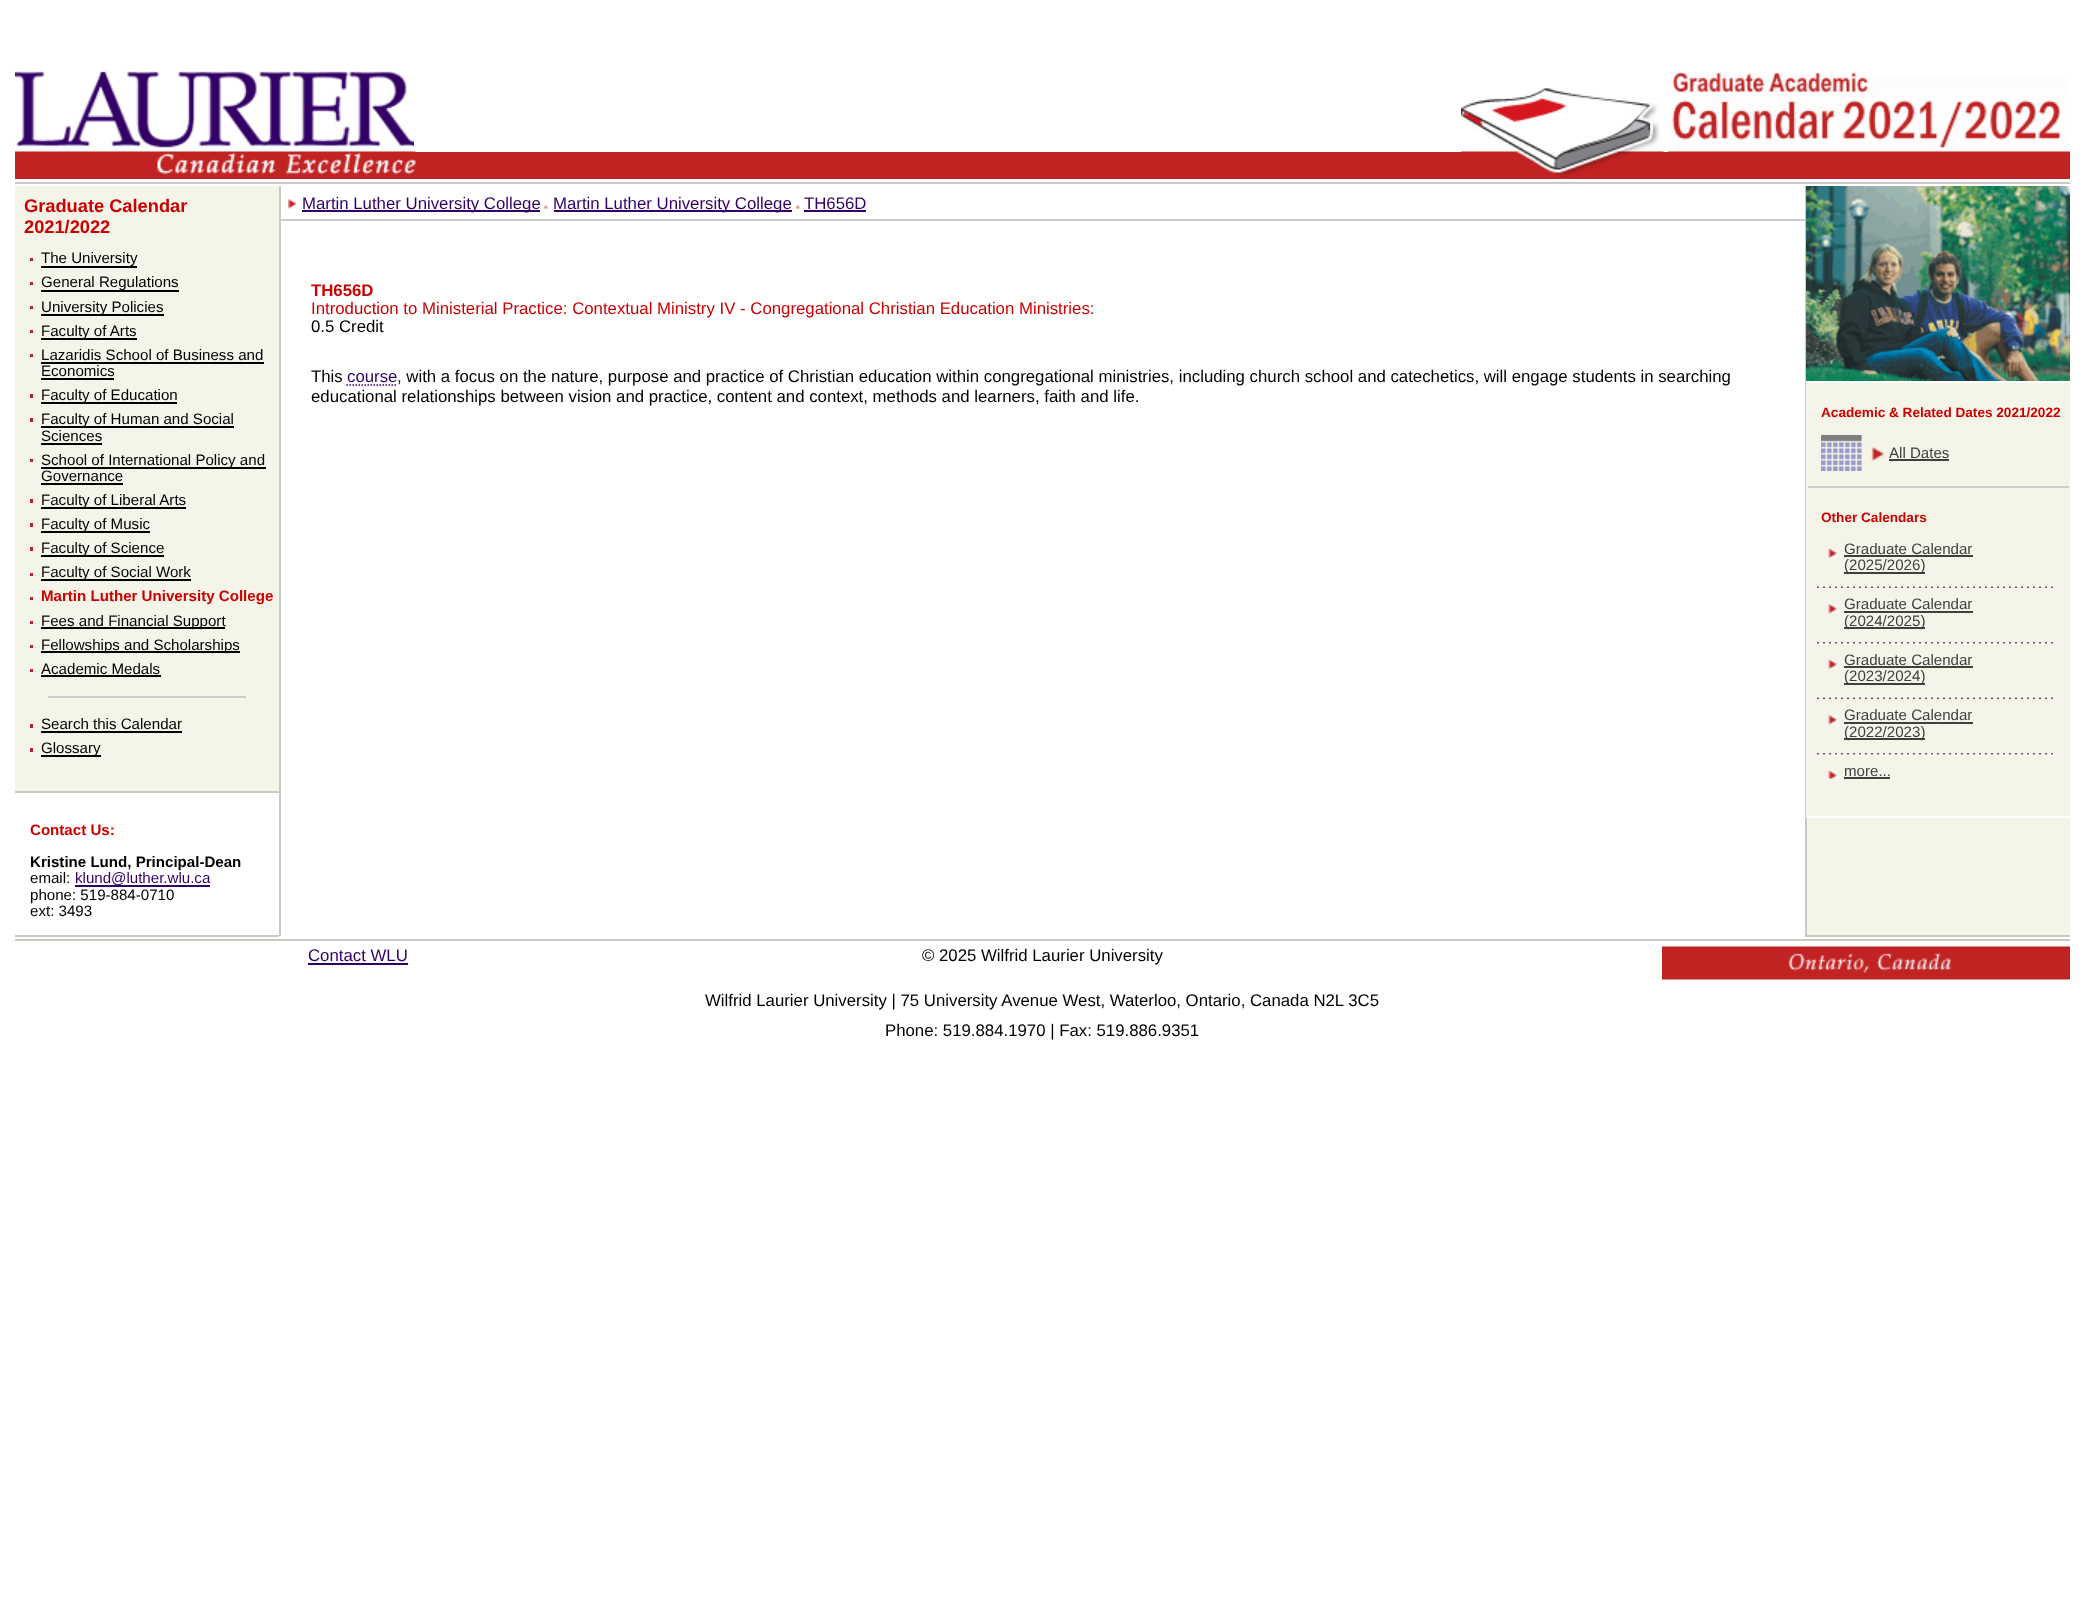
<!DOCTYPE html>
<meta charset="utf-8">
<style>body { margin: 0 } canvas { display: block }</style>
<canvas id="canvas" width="2084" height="1613"></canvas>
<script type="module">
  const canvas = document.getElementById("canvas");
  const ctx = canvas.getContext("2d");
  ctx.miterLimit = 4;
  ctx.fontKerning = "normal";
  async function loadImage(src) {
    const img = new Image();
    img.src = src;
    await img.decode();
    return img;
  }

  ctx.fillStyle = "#ffffff";
  ctx.fillRect(0, 0, 2084, 1613);
  ctx.fillStyle = "#c9cac2";
  ctx.fillRect(15, 182, 2055, 2);
  ctx.drawImage(await loadImage("img1.png"), 15, 71, 399, 77);
  ctx.fillStyle = "#c12222";
  ctx.fillRect(15, 152, 2055, 27);
  ctx.drawImage(await loadImage("img2.png"), 1461, 88, 203, 89);
  ctx.drawImage(await loadImage("img3.png"), 1668, 71, 402, 81);
  ctx.drawImage(await loadImage("img4.png"), 15, 151, 401, 24);
  ctx.fillStyle = "#f4f4e9";
  ctx.fillRect(15, 186, 264, 605);
  ctx.fillStyle = "#c9cac2";
  ctx.fillRect(279, 186, 2, 750);
  ctx.font = "bold 18.25px Liberation Sans";
  ctx.fillStyle = "#cc0000";
  ctx.fillText("Graduate Calendar", 24, 212);
  ctx.fillText("2021/2022", 24, 233);
  ctx.fillStyle = "#c11e37";
  ctx.fillRect(30, 258, 3, 3);
  ctx.fillStyle = "#000000";
  ctx.fillRect(41, 266, 96, 2);
  ctx.font = "15.1px Liberation Sans";
  ctx.fillText("The University", 41, 263);
  ctx.fillStyle = "#c11e37";
  ctx.fillRect(30, 282, 3, 3);
  ctx.fillStyle = "#000000";
  ctx.fillRect(41, 290, 138, 2);
  ctx.fillText("General Regulations", 41, 287);
  ctx.fillStyle = "#c11e37";
  ctx.fillRect(30, 306, 3, 3);
  ctx.fillStyle = "#000000";
  ctx.fillRect(41, 314, 123, 2);
  ctx.fillText("University Policies", 41, 312);
  ctx.fillStyle = "#c11e37";
  ctx.fillRect(30, 330, 3, 3);
  ctx.fillStyle = "#000000";
  ctx.fillRect(41, 338, 96, 2);
  ctx.fillText("Faculty of Arts", 41, 336);
  ctx.fillStyle = "#c11e37";
  ctx.fillRect(30, 354, 3, 3);
  ctx.fillStyle = "#000000";
  ctx.fillText("Lazaridis School of Business and", 41, 360);
  ctx.fillRect(41, 362, 223, 2);
  ctx.fillText("Economics", 41, 376);
  ctx.fillRect(41, 378, 73, 2);
  ctx.fillStyle = "#c11e37";
  ctx.fillRect(30, 394, 3, 4);
  ctx.fillStyle = "#000000";
  ctx.fillRect(41, 402, 136, 2);
  ctx.fillText("Faculty of Education", 41, 400);
  ctx.fillStyle = "#c11e37";
  ctx.fillRect(30, 418, 3, 4);
  ctx.fillStyle = "#000000";
  ctx.fillRect(41, 426, 193, 2);
  ctx.fillText("Faculty of Human and Social", 41, 424);
  ctx.fillText("Sciences", 41, 441);
  ctx.fillRect(41, 443, 61, 2);
  ctx.fillStyle = "#c11e37";
  ctx.fillRect(30, 459, 3, 3);
  ctx.fillStyle = "#000000";
  ctx.fillRect(41, 467, 225, 2);
  ctx.fillText("School of International Policy and", 41, 465);
  ctx.fillText("Governance", 41, 481);
  ctx.fillRect(41, 483, 82, 2);
  ctx.fillStyle = "#c11e37";
  ctx.fillRect(30, 499, 3, 4);
  ctx.fillStyle = "#000000";
  ctx.fillRect(41, 507, 145, 2);
  ctx.fillText("Faculty of Liberal Arts", 41, 505);
  ctx.fillStyle = "#c11e37";
  ctx.fillRect(30, 523, 3, 4);
  ctx.fillStyle = "#000000";
  ctx.fillRect(41, 531, 109, 2);
  ctx.fillText("Faculty of Music", 41, 529);
  ctx.fillStyle = "#c11e37";
  ctx.fillRect(30, 547, 3, 4);
  ctx.fillStyle = "#000000";
  ctx.fillRect(41, 555, 123, 2);
  ctx.fillText("Faculty of Science", 41, 553);
  ctx.fillStyle = "#c11e37";
  ctx.fillRect(30, 573, 3, 3);
  ctx.fillStyle = "#000000";
  ctx.fillRect(41, 579, 150, 2);
  ctx.fillText("Faculty of Social Work", 41, 577);
  ctx.fillStyle = "#c11e37";
  ctx.fillRect(30, 597, 3, 3);
  ctx.font = "bold 15.1px Liberation Sans";
  ctx.fillStyle = "#cc0000";
  ctx.fillText("Martin Luther University College", 41, 601);
  ctx.fillStyle = "#c11e37";
  ctx.fillRect(30, 621, 3, 3);
  ctx.fillStyle = "#000000";
  ctx.fillRect(41, 627, 184, 2);
  ctx.font = "15.1px Liberation Sans";
  ctx.fillText("Fees and Financial Support", 41, 626);
  ctx.fillStyle = "#c11e37";
  ctx.fillRect(30, 645, 3, 3);
  ctx.fillStyle = "#000000";
  ctx.fillRect(41, 651, 199, 2);
  ctx.fillText("Fellowships and Scholarships", 41, 650);
  ctx.fillStyle = "#c11e37";
  ctx.fillRect(30, 669, 3, 3);
  ctx.fillStyle = "#000000";
  ctx.fillText("Academic Medals", 41, 674);
  ctx.fillRect(41, 675, 120, 2);
  ctx.fillStyle = "#cdccca";
  ctx.fillRect(48, 696, 198, 2);
  ctx.fillStyle = "#c11e37";
  ctx.fillRect(30, 724, 3, 4);
  ctx.fillStyle = "#000000";
  ctx.fillText("Search this Calendar", 41, 729);
  ctx.fillRect(41, 731, 141, 2);
  ctx.fillStyle = "#c11e37";
  ctx.fillRect(30, 748, 3, 4);
  ctx.fillStyle = "#000000";
  ctx.fillRect(41, 755, 60, 2);
  ctx.fillText("Glossary", 41, 753);
  ctx.fillStyle = "#c9cac2";
  ctx.fillRect(15, 791, 264, 2);
  ctx.fillRect(15, 935, 264, 2);
  ctx.font = "bold 15.1px Liberation Sans";
  ctx.fillStyle = "#cc0000";
  ctx.fillText("Contact Us:", 30, 835);
  ctx.fillStyle = "#000000";
  ctx.fillText("Kristine Lund, Principal-Dean", 30, 867);
  ctx.font = "15.1px Liberation Sans";
  ctx.fillText("email:", 30, 883);
  ctx.fillStyle = "#330066";
  ctx.fillRect(75, 885, 135, 2);
  ctx.fillText("klund@luther.wlu.ca", 75, 883);
  ctx.fillStyle = "#000000";
  ctx.fillText("phone: 519-884-0710", 30, 900);
  ctx.fillText("ext: 3493", 30, 916);
  ctx.fillStyle = "#cdccca";
  ctx.fillRect(281, 219, 1524, 2);
  ctx.drawImage(await loadImage("img5.png"), 288, 199, 9, 10);
  ctx.fillStyle = "#330066";
  ctx.fillRect(302, 210, 238, 2);
  ctx.font = "16.8px Liberation Sans";
  ctx.fillText("Martin Luther University College", 302, 209);
  ctx.drawImage(await loadImage("img6.png"), 544, 205, 4, 4);
  ctx.fillRect(554, 210, 238, 2);
  ctx.fillText("Martin Luther University College", 553, 209);
  ctx.drawImage(await loadImage("img6.png"), 796, 205, 4, 4);
  ctx.fillText("TH656D", 804, 209);
  ctx.fillRect(804, 210, 62, 2);
  ctx.font = "bold 16.8px Liberation Sans";
  ctx.fillStyle = "#cc0000";
  ctx.fillText("TH656D", 311, 296);
  ctx.font = "16.8px Liberation Sans";
  ctx.fillText("Introduction to Ministerial Practice: Contextual Ministry IV - Congregational Christian Education Ministries:", 311, 314);
  ctx.fillStyle = "#000000";
  ctx.fillText("0.5 Credit", 311, 332);
  ctx.fillText("This", 311, 382);
  ctx.fillStyle = "#330066";
  ctx.fillText("course", 347, 382);
  ctx.beginPath();
  ctx.moveTo(346.5, 385);
  ctx.lineTo(397.5, 385);
  ctx.strokeStyle = "#330066";
  ctx.lineWidth = 1.5;
  ctx.setLineDash([1.5, 1.5]);
  ctx.stroke();
  ctx.fillStyle = "#000000";
  ctx.fillText(", with a focus on the nature, purpose and practice of Christian education within congregational ministries, including church school and catechetics, will engage students in searching", 397, 382);
  ctx.fillText("educational relationships between vision and practice, content and context, methods and learners, faith and life.", 311, 402);
  ctx.fillStyle = "#f4f4e9";
  ctx.fillRect(1807, 818, 263, 117);
  ctx.fillStyle = "#c9cac2";
  ctx.fillRect(1805, 935, 265, 2);
  ctx.fillRect(1805, 186, 2, 750);
  ctx.drawImage(await loadImage("img7.png"), 1806, 186, 264, 195);
  ctx.fillStyle = "#f4f4e9";
  ctx.fillRect(1806, 383, 264, 433);
  ctx.fillStyle = "#ffffff";
  ctx.fillRect(1806, 381, 1, 2);
  ctx.fillRect(1806, 816, 1, 2);
  ctx.font = "bold 13.6px Liberation Sans";
  ctx.fillStyle = "#cc0000";
  ctx.fillText("Academic & Related Dates 2021/2022", 1821, 417);
  ctx.drawImage(await loadImage("img8.png"), 1821, 435, 63, 36);
  ctx.font = "15.1px Liberation Sans";
  ctx.fillStyle = "#404040";
  ctx.fillText("All Dates", 1889, 458);
  ctx.fillRect(1889, 459, 60, 2);
  ctx.fillStyle = "#cdccca";
  ctx.fillRect(1808, 486, 261, 2);
  ctx.font = "bold 13.6px Liberation Sans";
  ctx.fillStyle = "#cc0000";
  ctx.fillText("Other Calendars", 1821, 522);
  ctx.drawImage(await loadImage("img9.png"), 1817, 586, 236, 2);
  ctx.drawImage(await loadImage("img10.png"), 1828, 549, 10, 9);
  ctx.font = "15.1px Liberation Sans";
  ctx.fillStyle = "#404040";
  ctx.fillText("Graduate Calendar", 1844, 554);
  ctx.fillRect(1844, 555, 129, 2);
  ctx.fillRect(1844, 572, 81, 2);
  ctx.fillText("(2025/2026)", 1844, 570);
  ctx.drawImage(await loadImage("img11.png"), 1817, 642, 236, 2);
  ctx.drawImage(await loadImage("img12.png"), 1828, 604, 10, 10);
  ctx.fillText("Graduate Calendar", 1844, 609);
  ctx.fillRect(1844, 611, 129, 2);
  ctx.fillRect(1844, 627, 81, 2);
  ctx.fillText("(2024/2025)", 1844, 626);
  ctx.drawImage(await loadImage("img9.png"), 1817, 697, 236, 2);
  ctx.drawImage(await loadImage("img10.png"), 1828, 660, 10, 9);
  ctx.fillText("Graduate Calendar", 1844, 665);
  ctx.fillRect(1844, 666, 129, 2);
  ctx.fillRect(1844, 683, 81, 2);
  ctx.fillText("(2023/2024)", 1844, 681);
  ctx.drawImage(await loadImage("img11.png"), 1817, 753, 236, 2);
  ctx.drawImage(await loadImage("img12.png"), 1828, 715, 10, 10);
  ctx.fillText("Graduate Calendar", 1844, 720);
  ctx.fillRect(1844, 722, 129, 2);
  ctx.fillRect(1844, 738, 81, 2);
  ctx.fillText("(2022/2023)", 1844, 737);
  ctx.drawImage(await loadImage("img13.png"), 1828, 771, 10, 8);
  ctx.fillText("more...", 1844, 776);
  ctx.fillRect(1844, 777, 46, 2);
  ctx.fillStyle = "#c9cac2";
  ctx.fillRect(15, 939, 2055, 2);
  ctx.font = "16.8px Liberation Sans";
  ctx.fillStyle = "#330066";
  ctx.fillText("Contact WLU", 308, 961);
  ctx.fillRect(308, 963, 100, 2);
  ctx.fillStyle = "#000000";
  ctx.fillText("© 2025 Wilfrid Laurier University", 922, 961);
  ctx.drawImage(await loadImage("img14.png"), 1662, 946, 408, 34);
  ctx.fillText("Wilfrid Laurier University | 75 University Avenue West, Waterloo, Ontario, Canada N2L 3C5", 705, 1006);
  ctx.fillText("Phone: 519.884.1970 | Fax: 519.886.9351", 885, 1036);
</script>
